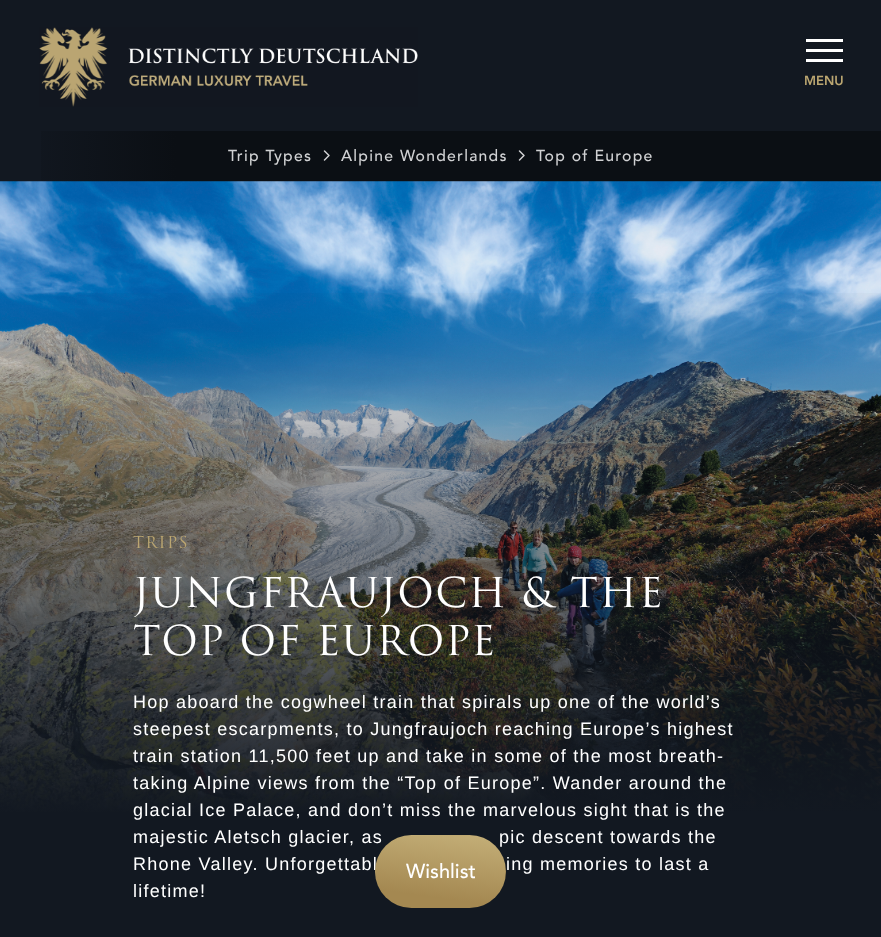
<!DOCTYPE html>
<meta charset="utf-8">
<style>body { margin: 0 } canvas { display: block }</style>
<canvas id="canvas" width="881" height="937"></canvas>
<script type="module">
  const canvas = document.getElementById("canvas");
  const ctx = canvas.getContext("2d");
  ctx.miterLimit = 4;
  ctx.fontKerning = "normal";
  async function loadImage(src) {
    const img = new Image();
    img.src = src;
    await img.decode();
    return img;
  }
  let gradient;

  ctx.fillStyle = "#121821";
  ctx.fillRect(0, 0, 881, 937);
  ctx.drawImage(await loadImage("img1.png"), 39, 27, 379, 80);
  ctx.fillStyle = "#ffffff";
  ctx.fillRect(806, 39, 37, 3);
  ctx.fillRect(806, 49, 37, 3);
  ctx.fillRect(806, 59, 37, 3);
  ctx.font = "900 13px Avenir";
  ctx.fillStyle = "#bba671";
  ctx.fillText("MENU", 804, 85);
  ctx.save();
  ctx.beginPath();
  ctx.roundRect(375, 835, 131, 73, 36.5);
  ctx.clip();
  gradient = ctx.createLinearGradient(430, 843, 451, 689);
  gradient.addColorStop(0, "#c4af78");
  gradient.addColorStop(0.45, "#a48851");
  gradient.addColorStop(0.55, "#a48851");
  gradient.addColorStop(1, "#c4af78");
  ctx.fillStyle = gradient;
  ctx.fillRect(403, 835, 75, 1);
  ctx.restore();
  ctx.letterSpacing = "1.25px";
  ctx.font = "18px Liberation Sans";
  ctx.fillStyle = "#ffffff";
  ctx.fillText("Rhone Valley. Unforgettabl", 133, 870);
  ctx.save();
  ctx.beginPath();
  ctx.roundRect(375, 835, 131, 73, 36.5);
  ctx.clip();
  gradient = ctx.createLinearGradient(302, 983, 322, 829);
  gradient.addColorStop(0, "#c4af78");
  gradient.addColorStop(0.45, "#a48851");
  gradient.addColorStop(0.55, "#a48851");
  gradient.addColorStop(1, "#c4af78");
  ctx.fillStyle = gradient;
  ctx.fillRect(375, 863, 1, 17);
  ctx.restore();
  ctx.fillText("majestic Aletsch glacier, as", 133, 843);
  ctx.fillText("pic descent towards the", 499, 843);
  ctx.save();
  ctx.beginPath();
  ctx.roundRect(375, 835, 131, 73, 36.5);
  ctx.clip();
  gradient = ctx.createLinearGradient(430, 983, 451, 829);
  gradient.addColorStop(0, "#c4af78");
  gradient.addColorStop(0.45, "#a48851");
  gradient.addColorStop(0.55, "#a48851");
  gradient.addColorStop(1, "#c4af78");
  ctx.fillStyle = gradient;
  ctx.fillRect(376, 836, 129, 72);
  gradient = ctx.createLinearGradient(559, 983, 580, 829);
  gradient.addColorStop(0, "#c4af78");
  gradient.addColorStop(0.45, "#a48851");
  gradient.addColorStop(0.55, "#a48851");
  gradient.addColorStop(1, "#c4af78");
  ctx.fillStyle = gradient;
  ctx.fillRect(505, 863, 1, 17);
  ctx.restore();
  ctx.letterSpacing = "0px";
  ctx.font = "500 20px Avenir";
  ctx.fillText("Wishlist", 406, 878);
  ctx.fillStyle = "#0b0f14";
  ctx.fillRect(176, 131, 705, 50);
  gradient = ctx.createLinearGradient(176, 156, 0, 156);
  gradient.addColorStop(0, "#0b0f14");
  gradient.addColorStop(0.95, "#121821");
  ctx.fillStyle = gradient;
  ctx.fillRect(41, 131, 135, 50);
  ctx.letterSpacing = "1.25px";
  ctx.font = "500 15.75px Avenir";
  ctx.fillStyle = "#d0d1d3";
  ctx.fillText("Trip Types", 228, 161);
  ctx.beginPath();
  ctx.moveTo(324.5, 151);
  ctx.lineTo(329, 155.5);
  ctx.lineTo(324.5, 160);
  ctx.strokeStyle = "#d0d1d3";
  ctx.lineWidth = 1.5;
  ctx.lineCap = "round";
  ctx.lineJoin = "round";
  ctx.stroke();
  ctx.fillText("Alpine Wonderlands", 341, 161);
  ctx.beginPath();
  ctx.moveTo(519.5, 151);
  ctx.lineTo(524, 155.5);
  ctx.lineTo(519.5, 160);
  ctx.stroke();
  ctx.fillText("Top of Europe", 536, 161);
  ctx.drawImage(await loadImage("img2.png"), 0, 181, 881, 631);
  gradient = ctx.createLinearGradient(441, 281, 441, 843);
  gradient.addColorStop(0, "rgba(18, 24, 33, 0)");
  gradient.addColorStop(0.95, "#121821");
  ctx.fillStyle = gradient;
  ctx.fillRect(0, 293, 881, 519);
  ctx.font = "16px 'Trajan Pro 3'";
  ctx.fillStyle = "#bba671";
  ctx.fillText("TRIPS", 133, 548);
  ctx.font = "40px 'Trajan Pro 3'";
  ctx.fillStyle = "#ffffff";
  ctx.fillText("JUNGFRAUJOCH & THE", 133, 607);
  ctx.fillText("TOP OF EUROPE", 133, 655);
  ctx.font = "18px Liberation Sans";
  ctx.fillText("Hop aboard the cogwheel train that spirals up one of the world’s", 133, 708);
  ctx.fillText("steepest escarpments, to Jungfraujoch reaching Europe’s highest", 133, 735);
  ctx.fillText("train station 11,500 feet up and take in some of the most breath-", 133, 762);
  ctx.fillText("taking Alpine views from the “Top of Europe”. Wander around the", 133, 789);
  ctx.fillText("glacial Ice Palace, and don’t miss the marvelous sight that is the", 133, 816);
  ctx.fillText("ing memories to last a", 506, 870);
  ctx.fillText("lifetime!", 133, 897);
</script>
